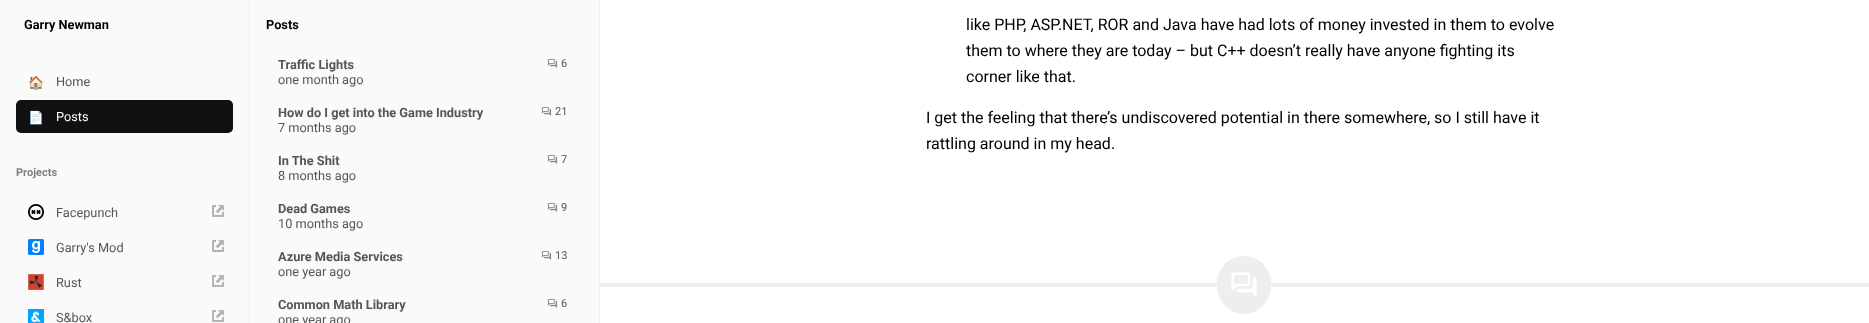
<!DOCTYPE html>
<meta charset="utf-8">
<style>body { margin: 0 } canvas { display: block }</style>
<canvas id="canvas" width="1869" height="323"></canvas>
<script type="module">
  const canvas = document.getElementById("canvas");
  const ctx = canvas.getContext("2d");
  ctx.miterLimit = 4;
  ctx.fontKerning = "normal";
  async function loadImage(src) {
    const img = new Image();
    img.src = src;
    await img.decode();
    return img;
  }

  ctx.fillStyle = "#ffffff";
  ctx.fillRect(0, 0, 1869, 323);
  ctx.fillStyle = "#fafafa";
  ctx.fillRect(0, 0, 249, 323);
  ctx.fillStyle = "#efefef";
  ctx.fillRect(249, 0, 1, 323);
  ctx.font = "bold 12.75px Roboto";
  ctx.fillStyle = "#000000";
  ctx.fillText("Garry Newman", 24, 29);
  ctx.font = "12.75px Noto Color Emoji";
  ctx.fillStyle = "#555555";
  ctx.fillText("🏠", 28, 87);
  ctx.font = "12.75px Roboto";
  ctx.fillText("Home", 56, 86);
  ctx.fillStyle = "#111111";
  ctx.beginPath();
  ctx.roundRect(16, 100, 217, 33, 5);
  ctx.fill();
  ctx.font = "12.75px Noto Color Emoji";
  ctx.fillStyle = "#ffffff";
  ctx.fillText("📄", 28, 122);
  ctx.font = "12.75px Roboto";
  ctx.fillText("Posts", 56, 121);
  ctx.font = "bold 11px Roboto";
  ctx.fillStyle = "#7d7d7d";
  ctx.fillText("Projects", 16, 176);
  ctx.drawImage(await loadImage("img1.png"), 28, 204, 16, 16);
  ctx.font = "12.75px Roboto";
  ctx.fillStyle = "#555555";
  ctx.fillText("Facepunch", 56, 217);
  ctx.drawImage(await loadImage("img2.png"), 212, 205, 12, 12);
  ctx.drawImage(await loadImage("img3.png"), 28, 239, 16, 16);
  ctx.fillText("Garry's Mod", 56, 252);
  ctx.drawImage(await loadImage("img2.png"), 212, 240, 12, 12);
  ctx.drawImage(await loadImage("img4.png"), 28, 274, 16, 16);
  ctx.fillText("Rust", 56, 287);
  ctx.drawImage(await loadImage("img2.png"), 212, 275, 12, 12);
  ctx.drawImage(await loadImage("img5.png"), 28, 309, 16, 14);
  ctx.fillText("S&box", 56, 322);
  ctx.drawImage(await loadImage("img2.png"), 212, 310, 12, 12);
  ctx.fillStyle = "#fafafa";
  ctx.fillRect(250, 0, 349, 323);
  ctx.fillStyle = "#efefef";
  ctx.fillRect(599, 0, 1, 323);
  ctx.font = "bold 12.75px Roboto";
  ctx.fillStyle = "#000000";
  ctx.fillText("Posts", 266, 29);
  ctx.fillStyle = "#555555";
  ctx.fillText("Traffic Lights", 278, 69);
  ctx.drawImage(await loadImage("img6.png"), 547, 58, 11, 10);
  ctx.font = "11px Roboto";
  ctx.fillText("6", 561, 67);
  ctx.font = "12.75px Roboto";
  ctx.fillText("one month ago", 278, 84);
  ctx.font = "bold 12.75px Roboto";
  ctx.fillText("How do I get into the Game Industry", 278, 117);
  ctx.drawImage(await loadImage("img6.png"), 541, 106, 11, 10);
  ctx.font = "11px Roboto";
  ctx.fillText("21", 555, 115);
  ctx.font = "12.75px Roboto";
  ctx.fillText("7 months ago", 278, 132);
  ctx.font = "bold 12.75px Roboto";
  ctx.fillText("In The Shit", 278, 165);
  ctx.drawImage(await loadImage("img6.png"), 547, 154, 11, 10);
  ctx.font = "11px Roboto";
  ctx.fillText("7", 561, 163);
  ctx.font = "12.75px Roboto";
  ctx.fillText("8 months ago", 278, 180);
  ctx.font = "bold 12.75px Roboto";
  ctx.fillText("Dead Games", 278, 213);
  ctx.drawImage(await loadImage("img6.png"), 547, 202, 11, 10);
  ctx.font = "11px Roboto";
  ctx.fillText("9", 561, 211);
  ctx.font = "12.75px Roboto";
  ctx.fillText("10 months ago", 278, 228);
  ctx.font = "bold 12.75px Roboto";
  ctx.fillText("Azure Media Services", 278, 261);
  ctx.drawImage(await loadImage("img6.png"), 541, 250, 11, 10);
  ctx.font = "11px Roboto";
  ctx.fillText("13", 555, 259);
  ctx.font = "12.75px Roboto";
  ctx.fillText("one year ago", 278, 276);
  ctx.font = "bold 12.75px Roboto";
  ctx.fillText("Common Math Library", 278, 309);
  ctx.drawImage(await loadImage("img6.png"), 547, 298, 11, 10);
  ctx.font = "11px Roboto";
  ctx.fillText("6", 561, 307);
  ctx.font = "12.75px Roboto";
  ctx.fillText("one year ago", 278, 324);
  ctx.font = "16px Roboto";
  ctx.fillStyle = "#000000";
  ctx.fillText("like PHP, ASP.NET, ROR and Java have had lots of money invested in them to evolve", 966, 30);
  ctx.fillText("them to where they are today – but C++ doesn’t really have anyone fighting its", 966, 56);
  ctx.fillText("corner like that.", 966, 82);
  ctx.fillText("I get the feeling that there’s undiscovered potential in there somewhere, so I still have it", 926, 123);
  ctx.fillText("rattling around in my head.", 926, 149);
  ctx.fillStyle = "#eeeeee";
  ctx.fillRect(600, 283, 1269, 4);
  ctx.beginPath();
  ctx.roundRect(1217, 256, 54, 58, 27);
  ctx.fill();
  ctx.drawImage(await loadImage("img7.png"), 1231, 272, 26, 25);
</script>
